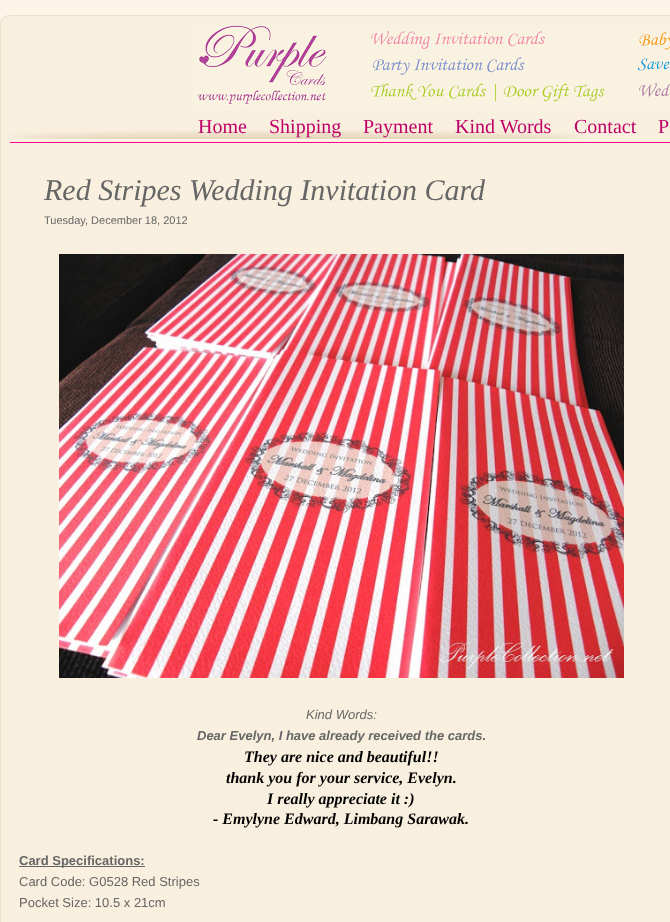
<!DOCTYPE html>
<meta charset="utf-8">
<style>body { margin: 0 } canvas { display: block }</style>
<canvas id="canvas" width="670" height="922"></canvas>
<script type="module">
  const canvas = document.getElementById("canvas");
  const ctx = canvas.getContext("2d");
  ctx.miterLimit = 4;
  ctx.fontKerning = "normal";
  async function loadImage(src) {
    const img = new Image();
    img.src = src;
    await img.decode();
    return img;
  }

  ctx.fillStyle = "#ffffff";
  ctx.fillRect(0, 0, 670, 922);
  ctx.drawImage(await loadImage("img1.png"), 0, 0, 670, 922);
  ctx.drawImage(await loadImage("img2.png"), 0, 15, 670, 907);
  ctx.fillStyle = "#ece0cb";
  ctx.beginPath();
  ctx.moveTo(10, 15);
  ctx.lineTo(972, 15);
  ctx.bezierCurveTo(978, 15, 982, 19, 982, 25);
  ctx.lineTo(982, 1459);
  ctx.lineTo(0, 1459);
  ctx.lineTo(0, 25);
  ctx.bezierCurveTo(0, 19, 4, 15, 10, 15);
  ctx.closePath();
  ctx.moveTo(10, 16);
  ctx.lineTo(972, 16);
  ctx.bezierCurveTo(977, 16, 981, 20, 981, 25);
  ctx.lineTo(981, 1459);
  ctx.lineTo(1, 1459);
  ctx.lineTo(1, 25);
  ctx.bezierCurveTo(1, 20, 5, 16, 10, 16);
  ctx.closePath();
  ctx.fill("evenodd");
  ctx.drawImage(await loadImage("img3.png"), 191, 25, 479, 80);
  ctx.fillStyle = "#fb0492";
  ctx.fillRect(10, 142, 660, 1);
  ctx.drawImage(await loadImage("img4.png"), 10, 130, 637, 10);
  ctx.font = "20px Liberation Serif";
  ctx.fillStyle = "#bf0268";
  ctx.fillText("Home", 198, 133);
  ctx.fillText("Shipping", 269, 133);
  ctx.fillText("Payment", 363, 133);
  ctx.fillText("Kind Words", 455, 133);
  ctx.fillText("Contact", 574, 133);
  ctx.fillText("P", 658, 133);
  ctx.font = "italic 30px Liberation Serif";
  ctx.fillStyle = "#666666";
  ctx.fillText("Red Stripes Wedding Invitation Card", 44, 200);
  ctx.font = "11px Liberation Sans";
  ctx.fillText("Tuesday, December 18, 2012", 44, 224);
  ctx.drawImage(await loadImage("img5.png"), 59, 254, 565, 424);
  ctx.font = "italic 13px Liberation Sans";
  ctx.fillText("Kind Words:", 306, 719);
  ctx.font = "italic bold 13px Liberation Sans";
  ctx.fillText("Dear Evelyn, I have already received the cards.", 197, 740);
  ctx.font = "italic bold 16px Liberation Serif";
  ctx.fillStyle = "#000000";
  ctx.fillText("They are nice and beautiful!!", 244, 762);
  ctx.fillText("thank you for your service, Evelyn.", 226, 783);
  ctx.fillText("I really appreciate it :)", 267, 804);
  ctx.fillText("- Emylyne Edward, Limbang Sarawak.", 213, 824);
  ctx.fillStyle = "#666666";
  ctx.fillRect(19, 866, 126, 1);
  ctx.font = "bold 13px Liberation Sans";
  ctx.fillText("Card Specifications:", 19, 865);
  ctx.font = "13px Liberation Sans";
  ctx.fillText("Card Code: G0528 Red Stripes", 19, 886);
  ctx.fillText("Pocket Size: 10.5 x 21cm", 19, 907);
</script>
